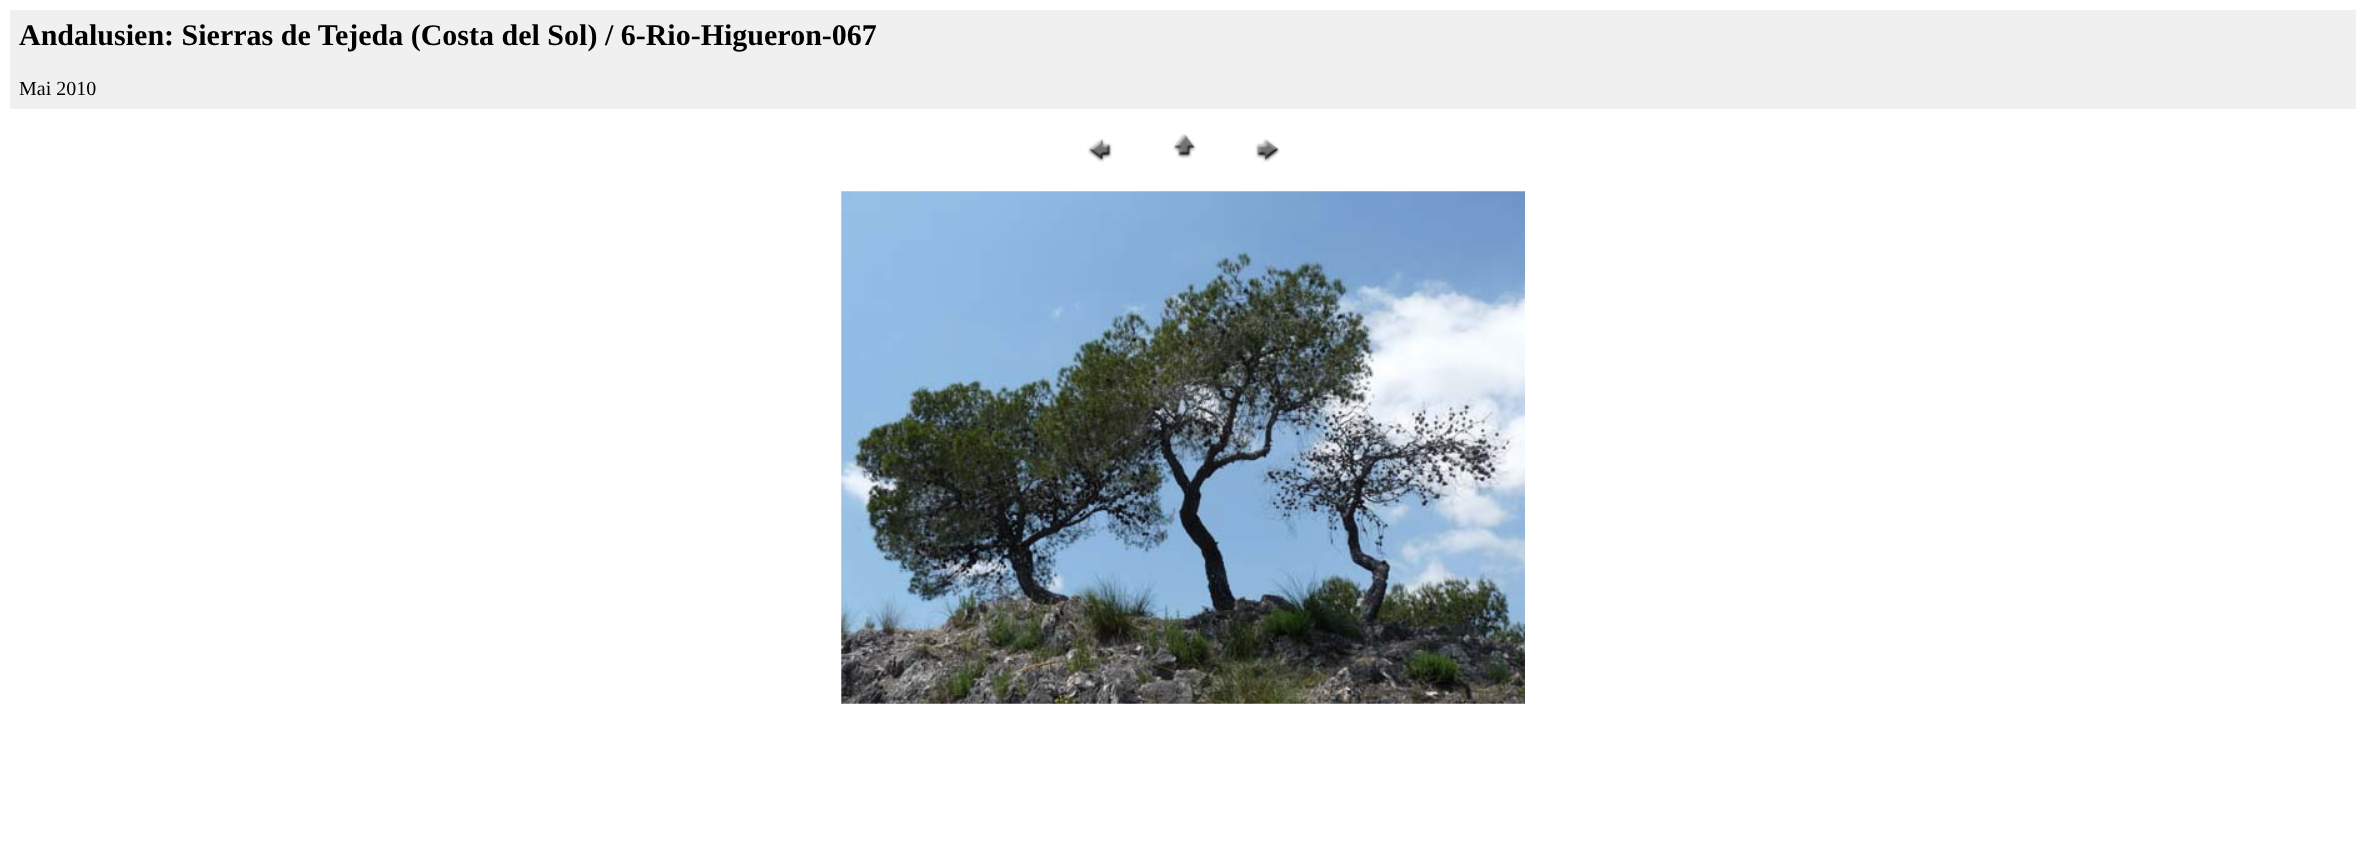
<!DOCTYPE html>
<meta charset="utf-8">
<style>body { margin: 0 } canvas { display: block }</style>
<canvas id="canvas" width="2366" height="851"></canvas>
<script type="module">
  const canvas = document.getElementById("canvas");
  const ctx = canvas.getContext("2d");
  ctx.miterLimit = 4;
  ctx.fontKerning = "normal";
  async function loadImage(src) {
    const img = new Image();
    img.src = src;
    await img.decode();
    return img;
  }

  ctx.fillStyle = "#ffffff";
  ctx.fillRect(0, 0, 2366, 851);
  ctx.fillStyle = "#f0f0f0";
  ctx.fillRect(10, 10, 2346, 99);
  ctx.font = "bold 30px Liberation Serif";
  ctx.fillStyle = "#000000";
  ctx.fillText("Andalusien: Sierras de Tejeda (Costa del Sol) / 6-Rio-Higueron-067", 19, 45);
  ctx.font = "20px Liberation Serif";
  ctx.fillText("Mai 2010", 19, 95);
  ctx.drawImage(await loadImage("img1.png"), 1087, 138, 26, 25);
  ctx.drawImage(await loadImage("img2.png"), 1172, 133, 25, 26);
  ctx.drawImage(await loadImage("img3.png"), 1255, 138, 25, 25);
  ctx.drawImage(await loadImage("img4.png"), 841, 191, 684, 513);
</script>
